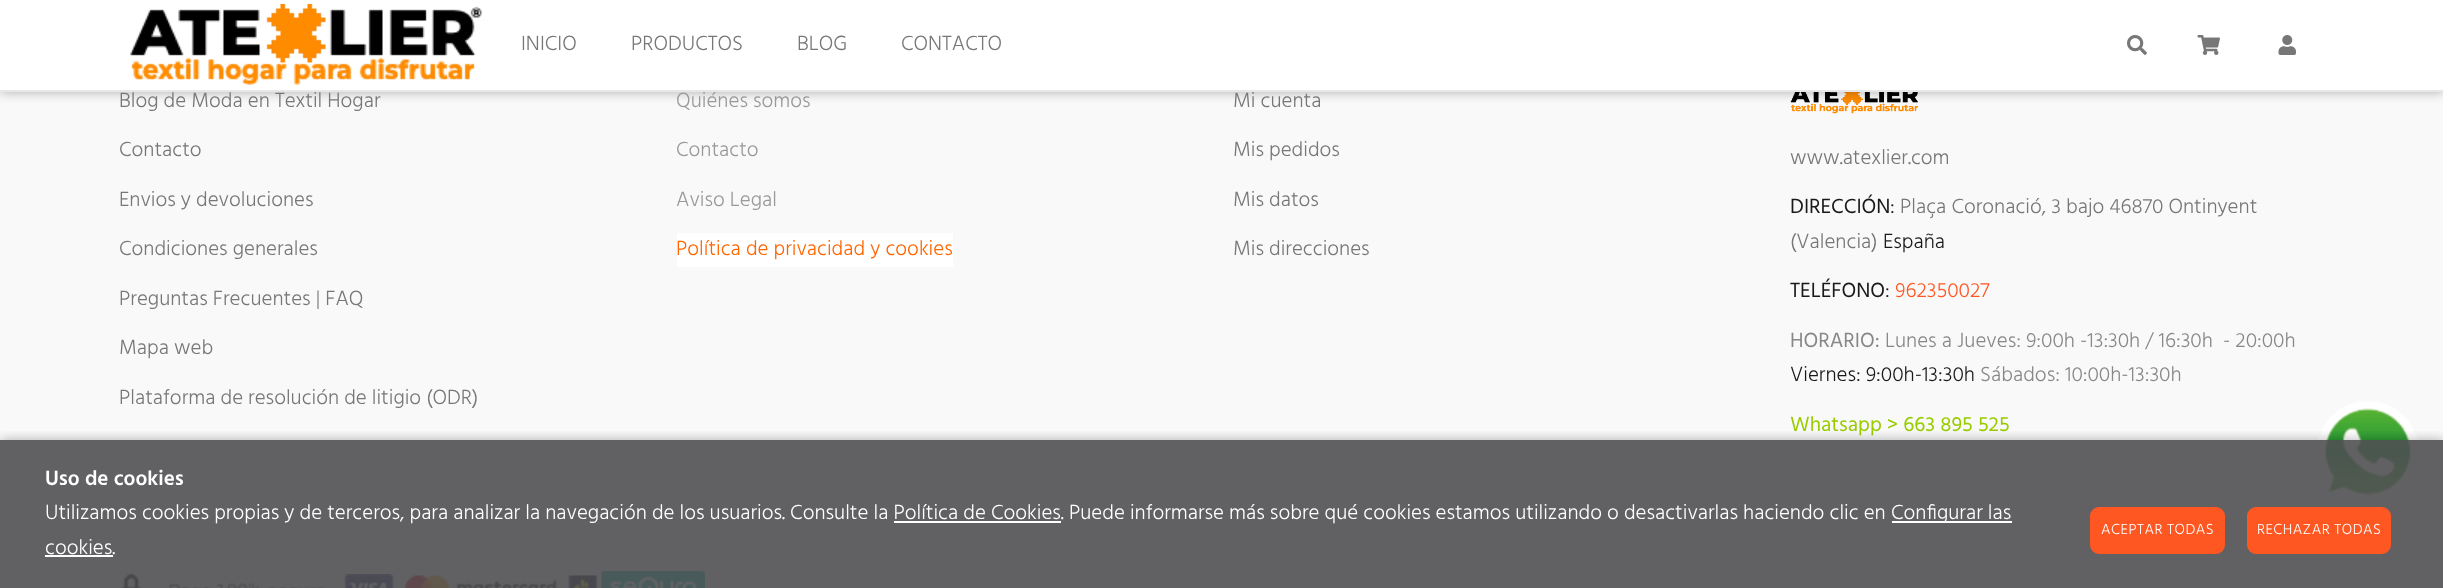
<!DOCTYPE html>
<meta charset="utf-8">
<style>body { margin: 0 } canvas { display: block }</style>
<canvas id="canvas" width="2443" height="588"></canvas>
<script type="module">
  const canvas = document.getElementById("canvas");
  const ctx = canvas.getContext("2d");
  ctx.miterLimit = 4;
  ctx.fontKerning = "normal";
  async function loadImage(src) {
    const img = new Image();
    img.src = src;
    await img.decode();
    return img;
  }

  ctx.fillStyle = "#f9f9f9";
  ctx.fillRect(0, 0, 2443, 588);
  ctx.drawImage(await loadImage("img5.png"), 1790, 92, 128, 22);
  ctx.fillStyle = "rgba(0, 0, 0, 0.3)";
  ctx.filter = "blur(6px)";
  ctx.beginPath();
  ctx.rect(0, 0, 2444, 92);
  ctx.fill();
  ctx.filter = "none";
  ctx.fillStyle = "#ffffff";
  ctx.fillRect(0, 0, 2443, 90);
  ctx.fillStyle = "#e7e7e7";
  ctx.fillRect(0, 90, 2443, 2);
  ctx.drawImage(await loadImage("img1.png"), 130, 4, 355, 81);
  ctx.font = "300 21px Hind";
  ctx.fillStyle = "#777777";
  ctx.fillText("INICIO", 521, 50);
  ctx.fillText("PRODUCTOS", 631, 50);
  ctx.fillText("BLOG", 797, 50);
  ctx.fillText("CONTACTO", 901, 50);
  ctx.drawImage(await loadImage("img2.png"), 2127, 35, 20, 20);
  ctx.drawImage(await loadImage("img3.png"), 2197, 35, 23, 20);
  ctx.drawImage(await loadImage("img4.png"), 2278, 35, 18, 20);
  ctx.fillText("Blog de Moda en Textil Hogar", 119, 107);
  ctx.fillText("Contacto", 119, 156);
  ctx.fillText("Envios y devoluciones", 119, 206);
  ctx.fillText("Condiciones generales", 119, 255);
  ctx.fillText("Preguntas Frecuentes | FAQ", 119, 305);
  ctx.fillText("Mapa web", 119, 354);
  ctx.fillText("Plataforma de resolución de litigio (ODR)", 119, 404);
  ctx.fillStyle = "#999999";
  ctx.fillText("Quiénes somos", 676, 107);
  ctx.fillText("Contacto", 676, 156);
  ctx.fillText("Aviso Legal", 676, 206);
  ctx.fillStyle = "#ffffff";
  ctx.fillRect(677, 233, 276, 34);
  ctx.fillStyle = "#ff6600";
  ctx.fillText("Política de privacidad y cookies", 676, 255);
  ctx.fillStyle = "#777777";
  ctx.fillText("Mi cuenta", 1233, 107);
  ctx.fillText("Mis pedidos", 1233, 156);
  ctx.fillText("Mis datos", 1233, 206);
  ctx.fillText("Mis direcciones", 1233, 255);
  ctx.fillText("www.atexlier.com", 1790, 164);
  ctx.font = "21px Hind";
  ctx.fillStyle = "#191919";
  ctx.fillText("DIRECCIÓN", 1790, 213);
  ctx.font = "300 21px Hind";
  ctx.fillText(":", 1890, 213);
  ctx.fillStyle = "#777777";
  ctx.fillText("Plaça Coronació, 3 bajo 46870 Ontinyent", 1900, 213);
  ctx.fillText("(Valencia)", 1790, 248);
  ctx.fillStyle = "#191919";
  ctx.fillText("España", 1883, 248);
  ctx.font = "21px Hind";
  ctx.fillText("TELÉFONO", 1790, 297);
  ctx.font = "300 21px Hind";
  ctx.fillText(":", 1885, 297);
  ctx.fillStyle = "#fe5722";
  ctx.fillText("962350027", 1895, 297);
  ctx.font = "21px Hind";
  ctx.fillStyle = "#888888";
  ctx.fillText("HORARIO:", 1790, 347);
  ctx.font = "300 21px Hind";
  ctx.fillText("Lunes a Jueves: 9:00h -13:30h / 16:30h  - 20:00h", 1885, 347);
  ctx.fillStyle = "#191919";
  ctx.fillText("Viernes: 9:00h-13:30h", 1790, 381);
  ctx.fillStyle = "#888888";
  ctx.fillText("Sábados: 10:00h-13:30h", 1980, 381);
  ctx.font = "21px Hind";
  ctx.fillStyle = "#99cc00";
  ctx.fillText("Whatsapp > 663 895 525", 1790, 431);
  ctx.drawImage(await loadImage("img6.png"), 2317, 401, 101, 103);
  ctx.drawImage(await loadImage("img7.png"), 120, 574, 477, 14);
  ctx.drawImage(await loadImage("img8.png"), 601, 571, 104, 17);
  ctx.save();
  ctx.beginPath();
  ctx.rect(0, 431, 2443, 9);
  ctx.clip();
  ctx.fillStyle = "rgba(0, 0, 0, 0.3)";
  ctx.filter = "blur(6px)";
  ctx.beginPath();
  ctx.rect(0, 440, 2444, 148);
  ctx.fill();
  ctx.filter = "none";
  ctx.restore();
  ctx.fillStyle = "rgba(80, 80, 82, 0.9)";
  ctx.fillRect(0, 440, 2443, 148);
  ctx.font = "600 21px Hind";
  ctx.fillStyle = "#ffffff";
  ctx.fillText("Uso de cookies", 45, 485);
  ctx.font = "300 21px Hind";
  ctx.fillText("Utilizamos cookies propias y de terceros, para analizar la navegación de los usuarios. Consulte la Política de Cookies. Puede informarse más sobre qué cookies estamos utilizando o desactivarlas haciendo clic en", 45, 519);
  ctx.fillRect(1892, 521, 120, 2);
  ctx.fillText("Configurar las", 1891, 519);
  ctx.fillRect(894, 521, 167, 2);
  ctx.fillText("cookies.", 45, 554);
  ctx.fillRect(45, 555, 68, 2);
  ctx.fillStyle = "#fe5722";
  ctx.beginPath();
  ctx.roundRect(2091.5, 508.5, 132, 44, 7.5);
  ctx.fill();
  ctx.strokeStyle = "#fe5722";
  ctx.lineWidth = 3;
  ctx.stroke();
  ctx.letterSpacing = "0.5px";
  ctx.font = "300 15px Hind";
  ctx.fillStyle = "#ffffff";
  ctx.fillText("ACEPTAR TODAS", 2101, 534);
  ctx.fillStyle = "#fe5722";
  ctx.beginPath();
  ctx.roundRect(2248.5, 508.5, 141, 44, 7.5);
  ctx.fill();
  ctx.stroke();
  ctx.fillStyle = "#ffffff";
  ctx.fillText("RECHAZAR TODAS", 2257, 534);
</script>
